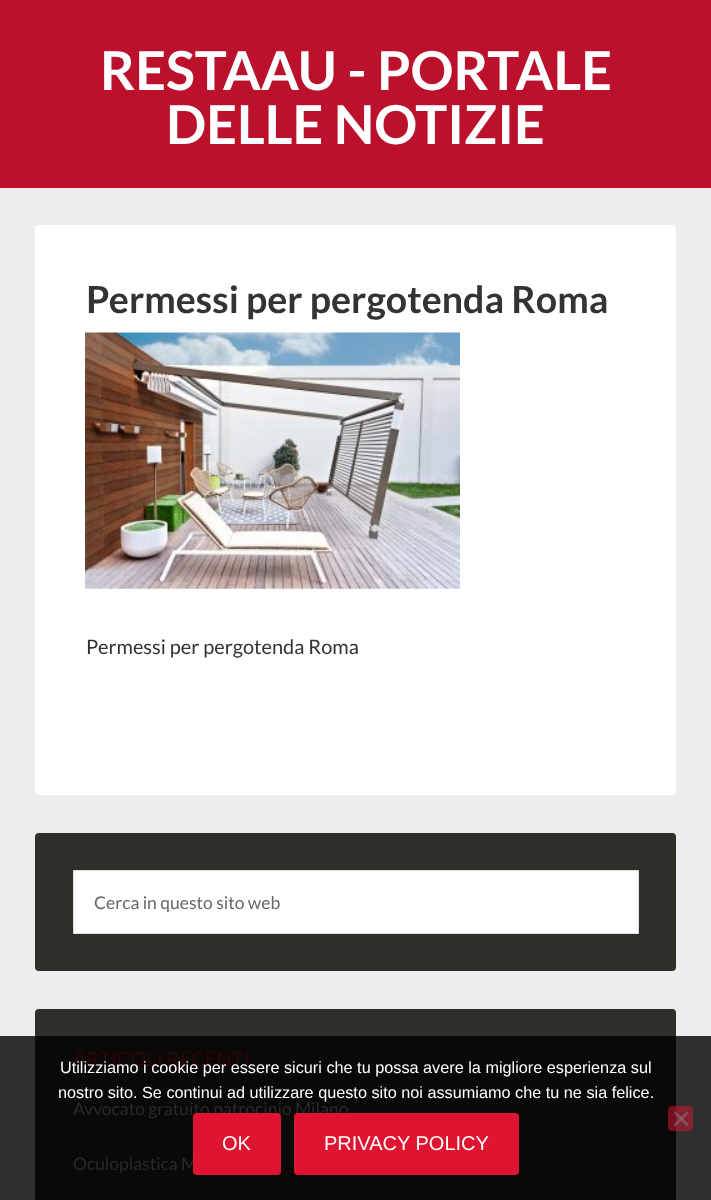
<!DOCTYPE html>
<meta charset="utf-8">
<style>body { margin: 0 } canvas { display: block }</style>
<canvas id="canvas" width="711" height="1200"></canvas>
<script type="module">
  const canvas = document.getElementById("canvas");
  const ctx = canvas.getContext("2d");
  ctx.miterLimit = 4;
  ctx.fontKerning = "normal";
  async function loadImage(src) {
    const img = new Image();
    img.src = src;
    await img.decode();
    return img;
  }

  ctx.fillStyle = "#ededed";
  ctx.fillRect(0, 0, 711, 1200);
  ctx.fillStyle = "#2f2f2f";
  ctx.fillRect(0, 1036, 711, 164);
  ctx.fillStyle = "#bc112c";
  ctx.fillRect(0, 0, 711, 188);
  ctx.font = "bold 53.75px Lato";
  ctx.fillStyle = "#ffffff";
  ctx.fillText("RESTAAU - PORTALE", 100, 90);
  ctx.fillText("DELLE NOTIZIE", 166, 144);
  ctx.beginPath();
  ctx.roundRect(35, 225, 641, 570, 4);
  ctx.fill();
  ctx.font = "bold 37.5px Lato";
  ctx.fillStyle = "#333333";
  ctx.fillText("Permessi per pergotenda Roma", 86, 313);
  ctx.drawImage(await loadImage("img1.png"), 85, 332, 375, 257);
  ctx.font = "20px Lato";
  ctx.fillText("Permessi per pergotenda Roma", 86, 654);
  ctx.fillStyle = "#302e29";
  ctx.beginPath();
  ctx.roundRect(35, 833, 641, 138, 4);
  ctx.fill();
  ctx.fillStyle = "#ffffff";
  ctx.beginPath();
  ctx.rect(73.5, 870.5, 565, 63);
  ctx.fill();
  ctx.strokeStyle = "#dddddd";
  ctx.stroke();
  ctx.font = "17.5px Lato";
  ctx.fillStyle = "#666666";
  ctx.fillText("Cerca in questo sito web", 94, 909);
  ctx.fillStyle = "#302e29";
  ctx.beginPath();
  ctx.roundRect(35, 1009, 641, 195, 4);
  ctx.fill();
  ctx.fillStyle = "#0a0908";
  ctx.fillRect(35, 1036, 641, 164);
  ctx.font = "20px Lato";
  ctx.fillStyle = "#2d040a";
  ctx.fillText("ARTICOLI RECENTI", 73, 1066);
  ctx.beginPath();
  ctx.moveTo(72.5, 1137);
  ctx.lineTo(639, 1137);
  ctx.strokeStyle = "#0f0f0f";
  ctx.lineWidth = 1.2;
  ctx.setLineDash([1.25, 1.25]);
  ctx.stroke();
  ctx.font = "17.5px Lato";
  ctx.fillStyle = "#292929";
  ctx.fillText("Avvocato gratuito patrocinio Milano", 73, 1115);
  ctx.beginPath();
  ctx.moveTo(72.5, 1192);
  ctx.lineTo(639, 1192);
  ctx.stroke();
  ctx.fillText("Oculoplastica M", 73, 1170);
  ctx.font = "16.25px Liberation Sans";
  ctx.fillStyle = "#ffffff";
  ctx.fillText("Utilizziamo i cookie per essere sicuri che tu possa avere la migliore esperienza sul", 60, 1073);
  ctx.fillText("nostro sito. Se continui ad utilizzare questo sito noi assumiamo che tu ne sia felice.", 58, 1098);
  ctx.fillStyle = "rgba(223, 20, 49, 0.5)";
  ctx.beginPath();
  ctx.roundRect(668, 1106, 25, 25, 4);
  ctx.fill();
  ctx.fillStyle = "rgba(128, 128, 128, 0.5)";
  ctx.beginPath();
  ctx.moveTo(687, 1111);
  ctx.lineTo(689, 1113);
  ctx.lineTo(675.5, 1126.5);
  ctx.lineTo(673.5, 1124.5);
  ctx.closePath();
  ctx.fill();
  ctx.beginPath();
  ctx.moveTo(673.5, 1113);
  ctx.lineTo(675.5, 1111);
  ctx.lineTo(689, 1124.5);
  ctx.lineTo(687, 1126.5);
  ctx.closePath();
  ctx.fill();
  ctx.fillStyle = "#df1431";
  ctx.beginPath();
  ctx.roundRect(193, 1113, 88, 62, 4);
  ctx.fill();
  ctx.font = "20px Liberation Sans";
  ctx.fillStyle = "#ffffff";
  ctx.fillText("OK", 222, 1150);
  ctx.fillStyle = "#df1431";
  ctx.beginPath();
  ctx.roundRect(294, 1113, 225, 62, 4);
  ctx.fill();
  ctx.fillStyle = "#ffffff";
  ctx.fillText("PRIVACY POLICY", 324, 1150);
</script>
